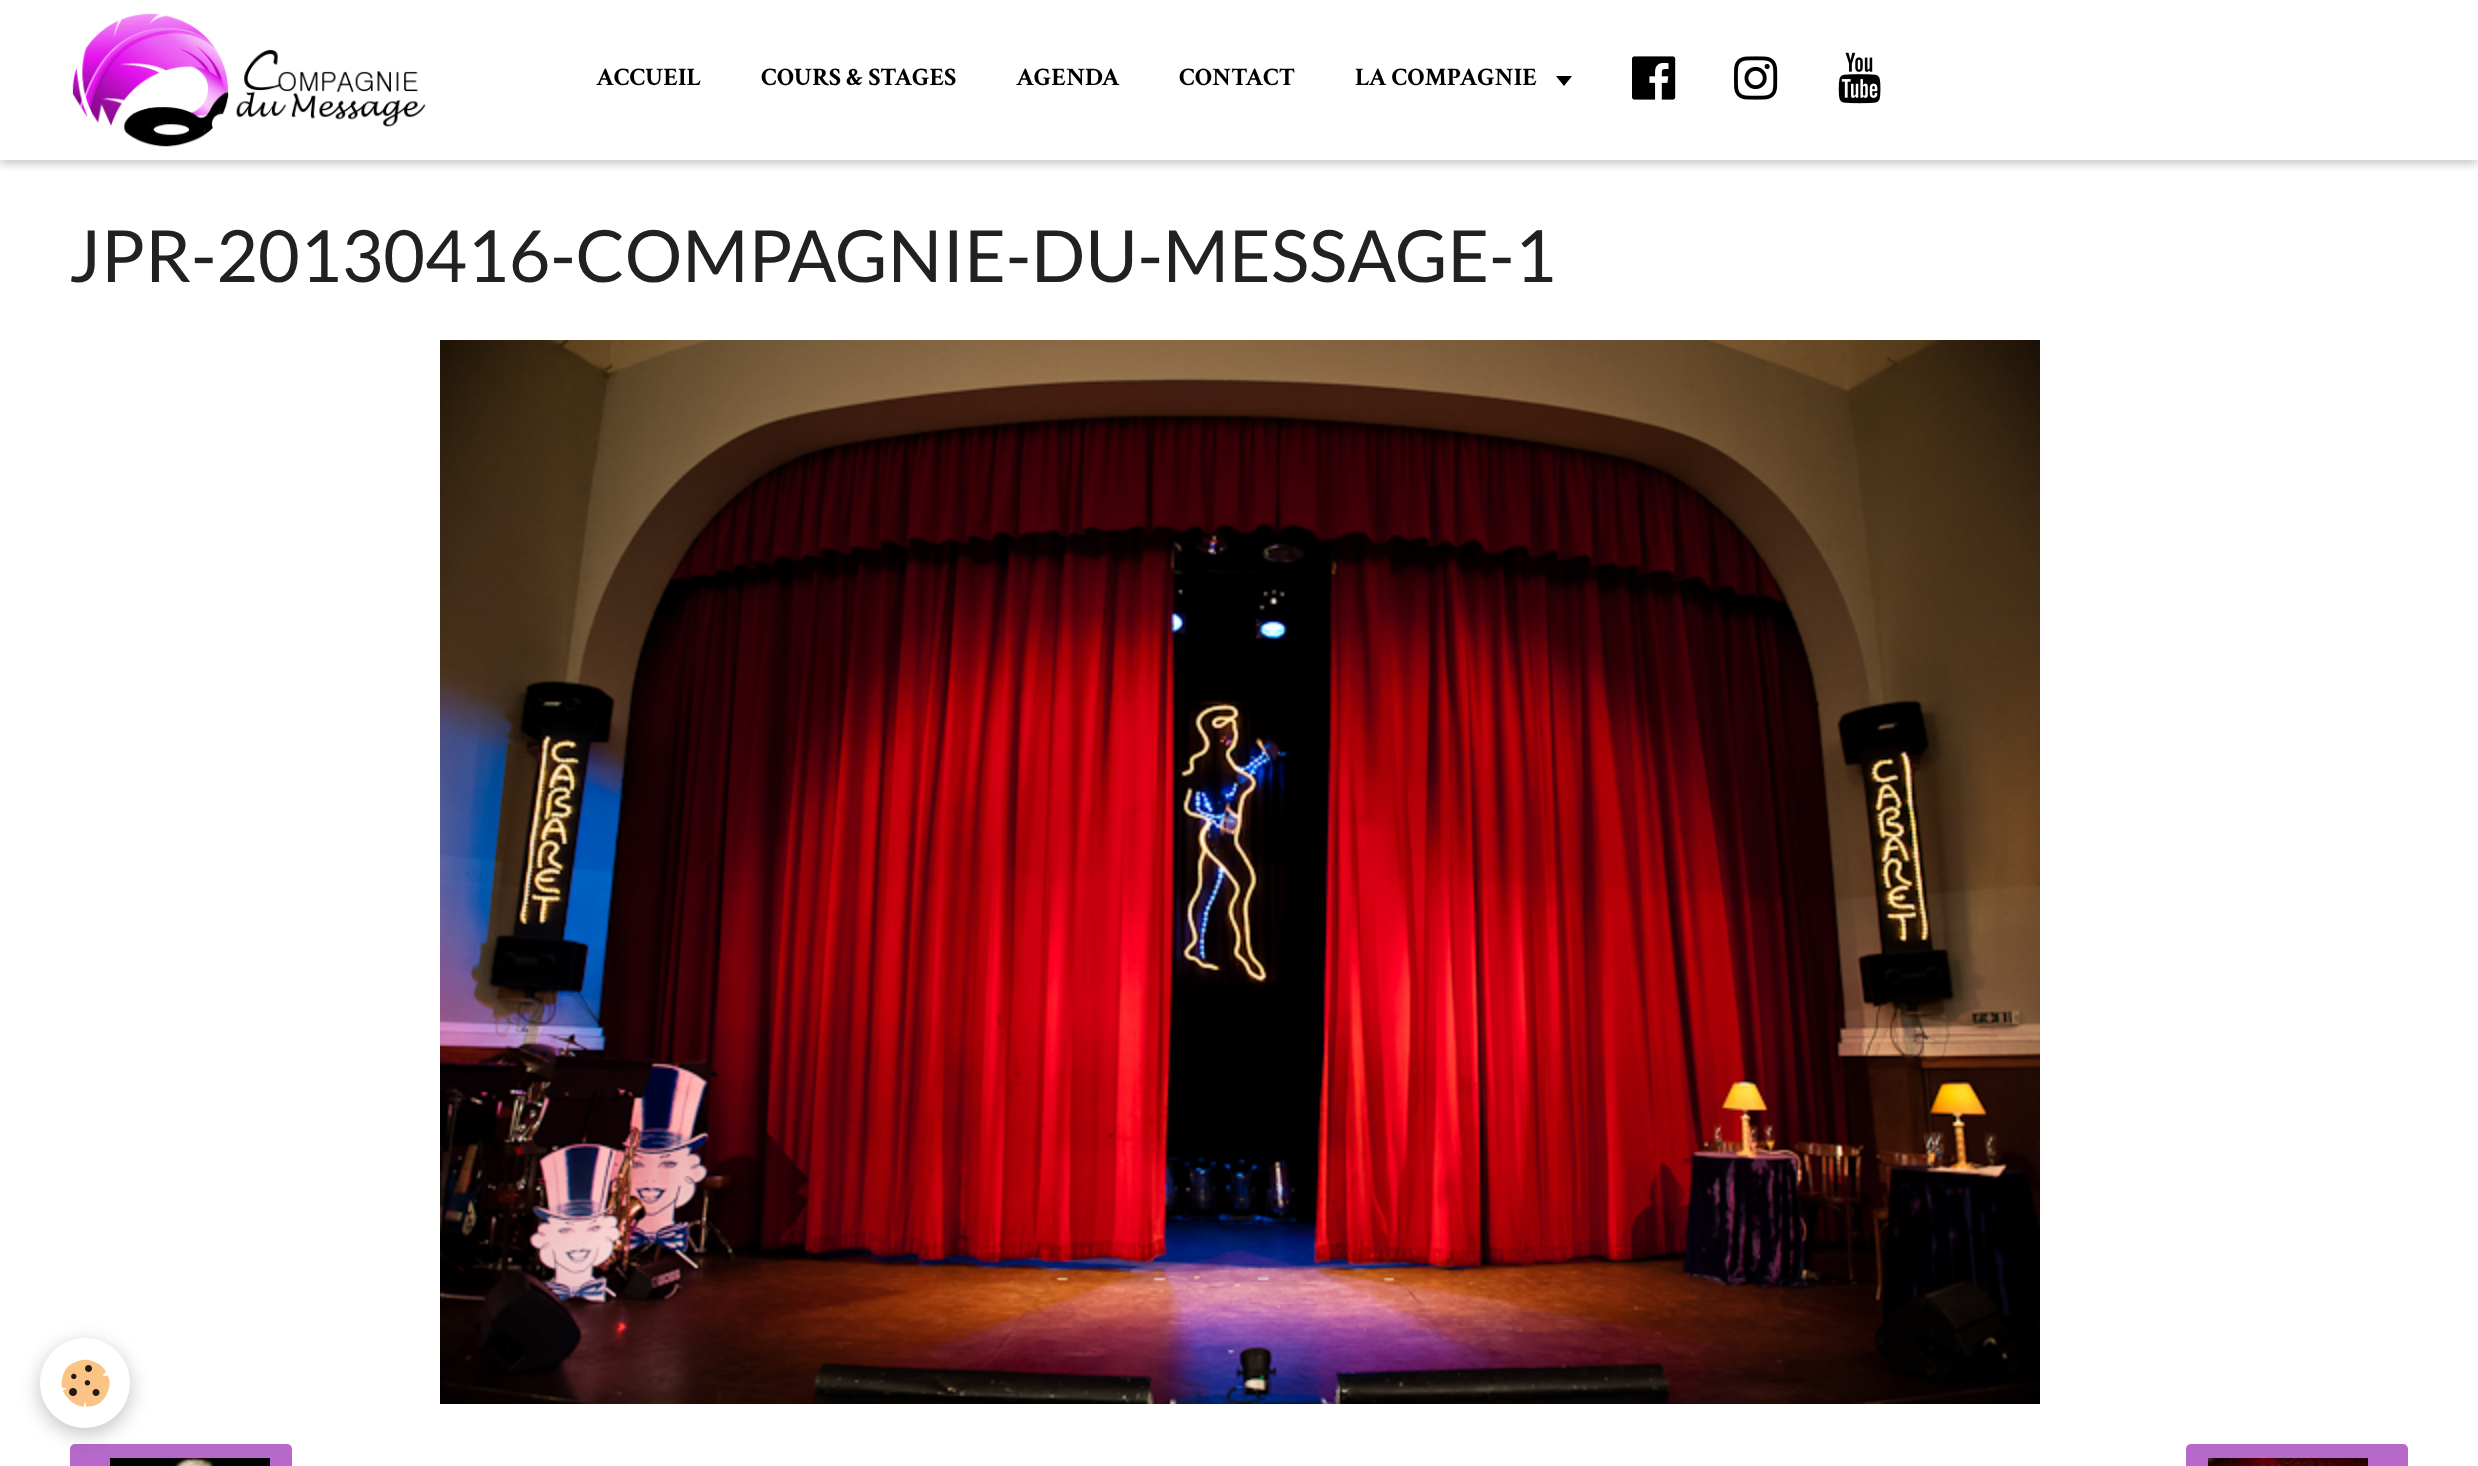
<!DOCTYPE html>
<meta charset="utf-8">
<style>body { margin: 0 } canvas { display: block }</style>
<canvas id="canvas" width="2478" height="1466"></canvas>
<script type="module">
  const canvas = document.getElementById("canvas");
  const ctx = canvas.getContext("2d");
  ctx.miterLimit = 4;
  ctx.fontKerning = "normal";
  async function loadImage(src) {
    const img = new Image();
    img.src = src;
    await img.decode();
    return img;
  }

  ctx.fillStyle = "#ffffff";
  ctx.fillRect(0, 0, 2478, 1466);
  ctx.save();
  ctx.beginPath();
  ctx.rect(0, 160, 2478, 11);
  ctx.clip();
  ctx.fillStyle = "rgba(39, 39, 39, 0.26)";
  ctx.filter = "blur(5px)";
  ctx.beginPath();
  ctx.rect(0, 4, 2478, 160);
  ctx.fill();
  ctx.filter = "none";
  ctx.restore();
  ctx.drawImage(await loadImage("img1.png"), 72, 13, 354, 134);
  ctx.font = "bold 25.25px Crimson Text";
  ctx.fillStyle = "#000000";
  ctx.fillText("ACCUEIL", 596, 85);
  ctx.fillText("COURS & STAGES", 761, 85);
  ctx.fillText("AGENDA", 1016, 85);
  ctx.fillText("CONTACT", 1179, 85);
  ctx.fillText("LA COMPAGNIE", 1355, 85);
  ctx.beginPath();
  ctx.moveTo(1556, 76);
  ctx.lineTo(1572, 76);
  ctx.lineTo(1564, 86);
  ctx.closePath();
  ctx.fill();
  ctx.drawImage(await loadImage("img2.png"), 1632, 56, 44, 44);
  ctx.drawImage(await loadImage("img3.png"), 1734, 56, 44, 44);
  ctx.drawImage(await loadImage("img4.png"), 1838, 52, 43, 52);
  ctx.font = "72px Lato";
  ctx.fillStyle = "#212121";
  ctx.fillText("JPR-20130416-COMPAGNIE-DU-MESSAGE-1", 69, 282);
  ctx.drawImage(await loadImage("img5.png"), 440, 340, 1600, 1064);
  ctx.fillStyle = "#b768cb";
  ctx.beginPath();
  ctx.roundRect(71, 1445, 220, 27, 4);
  ctx.fill();
  ctx.strokeStyle = "#b768cb";
  ctx.lineWidth = 2;
  ctx.stroke();
  ctx.drawImage(await loadImage("img6.png"), 110, 1458, 160, 8);
  ctx.beginPath();
  ctx.roundRect(2187, 1445, 220, 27, 4);
  ctx.fill();
  ctx.stroke();
  ctx.drawImage(await loadImage("img7.png"), 2208, 1458, 160, 8);
  ctx.fillStyle = "rgba(0, 0, 0, 0.24)";
  ctx.filter = "blur(10px)";
  ctx.beginPath();
  ctx.roundRect(40, 1344, 90, 90, 45);
  ctx.fill();
  ctx.filter = "none";
  ctx.fillStyle = "#ffffff";
  ctx.beginPath();
  ctx.arc(85, 1383, 45, 0, Math.PI * 2);
  ctx.fill();
  ctx.drawImage(await loadImage("img8.png"), 61, 1359, 49, 48);
</script>
